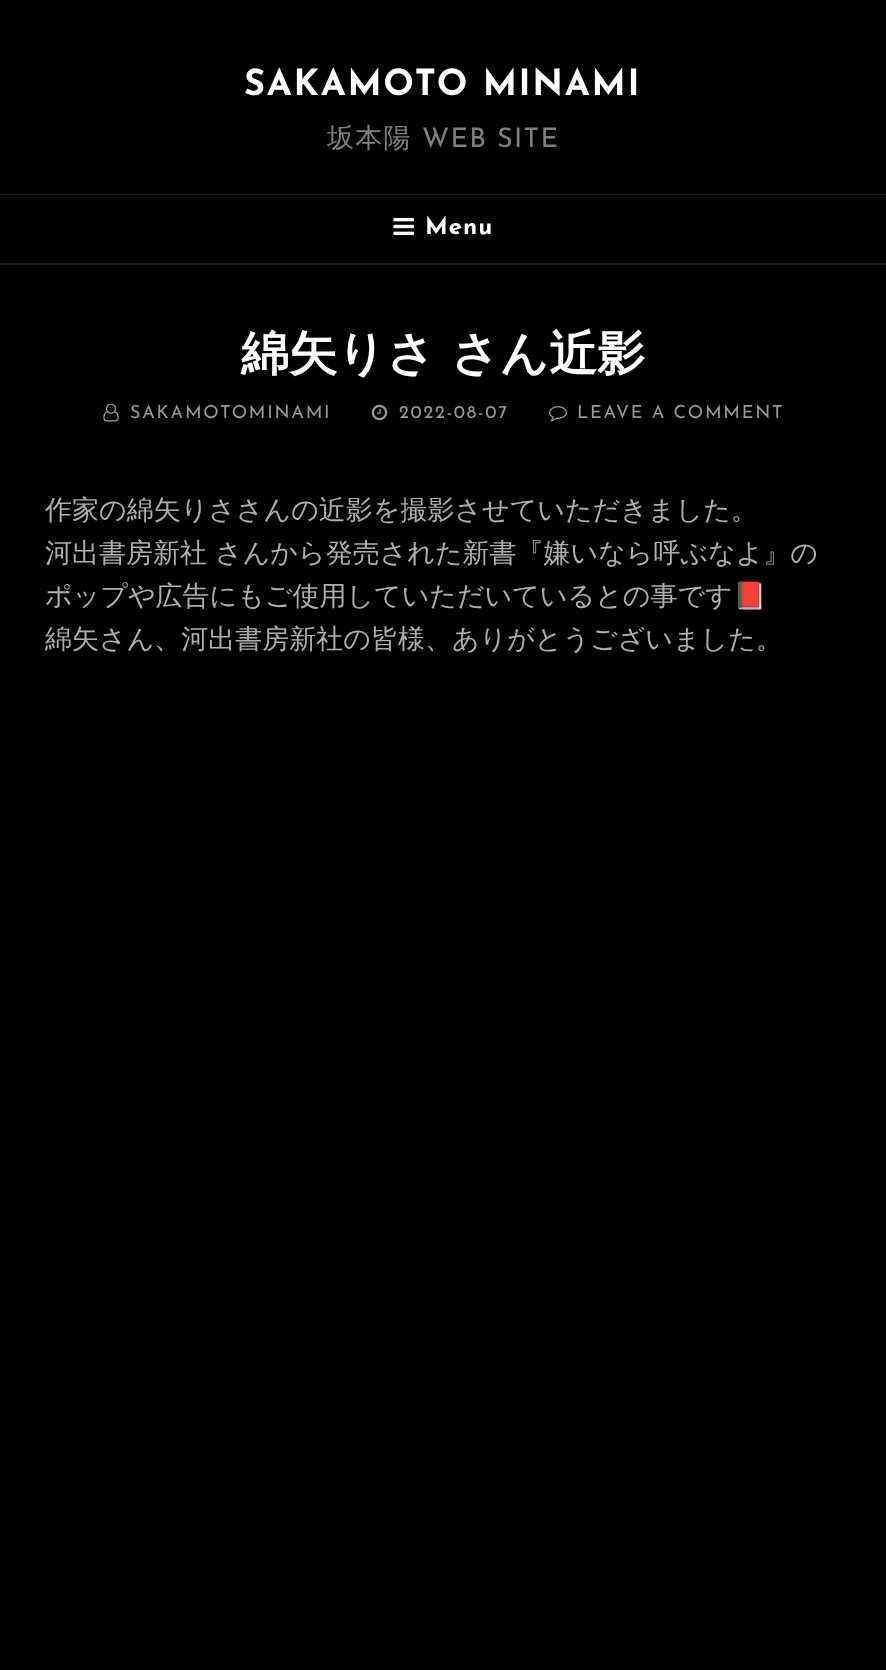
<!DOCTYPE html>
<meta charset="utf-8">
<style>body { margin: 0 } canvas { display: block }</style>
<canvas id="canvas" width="886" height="1670"></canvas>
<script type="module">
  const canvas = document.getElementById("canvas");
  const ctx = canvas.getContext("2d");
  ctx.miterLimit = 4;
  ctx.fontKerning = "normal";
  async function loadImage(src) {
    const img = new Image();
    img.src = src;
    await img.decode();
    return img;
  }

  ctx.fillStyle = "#000000";
  ctx.fillRect(0, 0, 886, 1670);
  ctx.letterSpacing = "1.75px";
  ctx.font = "bold 36px Josefin Sans";
  ctx.fillStyle = "#ffffff";
  ctx.fillText("SAKAMOTO MINAMI", 244, 95);
  ctx.letterSpacing = "1.25px";
  ctx.font = "500 27px WenQuanYi Zen Hei";
  ctx.fillStyle = "#808080";
  ctx.fillText("坂本陽", 327, 147);
  ctx.font = "27px Josefin Sans";
  ctx.fillText("WEB SITE", 422, 147);
  ctx.fillStyle = "#1c1c1c";
  ctx.fillRect(0, 194, 886, 1);
  ctx.fillRect(0, 263, 886, 2);
  ctx.drawImage(await loadImage("img1.png"), 393, 217, 21, 19);
  ctx.letterSpacing = "1px";
  ctx.font = "bold 24px Josefin Sans";
  ctx.fillStyle = "#ffffff";
  ctx.fillText("Menu", 425, 234);
  ctx.letterSpacing = "0px";
  ctx.wordSpacing = "1px";
  ctx.font = "bold 48px WenQuanYi Zen Hei";
  ctx.fillText("綿矢りさ さん近影", 241, 370);
  ctx.drawImage(await loadImage("img2.png"), 103, 404, 16, 18);
  ctx.letterSpacing = "1.75px";
  ctx.wordSpacing = "0px";
  ctx.font = "18px Josefin Sans";
  ctx.fillStyle = "#999999";
  ctx.fillText("SAKAMOTOMINAMI", 130, 418);
  ctx.drawImage(await loadImage("img3.png"), 371, 404, 17, 17);
  ctx.fillText("2022-08-07", 399, 418);
  ctx.drawImage(await loadImage("img4.png"), 549, 406, 18, 16);
  ctx.fillText("LEAVE A COMMENT", 577, 418);
  ctx.letterSpacing = "0px";
  ctx.font = "500 27px WenQuanYi Zen Hei";
  ctx.fillStyle = "#afafaf";
  ctx.fillText("作家の綿矢りささんの近影を撮影させていただきました。", 45, 519);
  ctx.fillText("河出書房新社 さんから発売された新書『嫌いなら呼ぶなよ』の", 45, 562);
  ctx.fillText("ポップや広告にもご使用していただいているとの事です", 45, 605);
  ctx.font = "27px Noto Color Emoji";
  ctx.fillText("📕", 733, 605);
  ctx.font = "500 27px WenQuanYi Zen Hei";
  ctx.fillText("綿矢さん、河出書房新社の皆様、ありがとうございました。", 45, 648);
</script>
